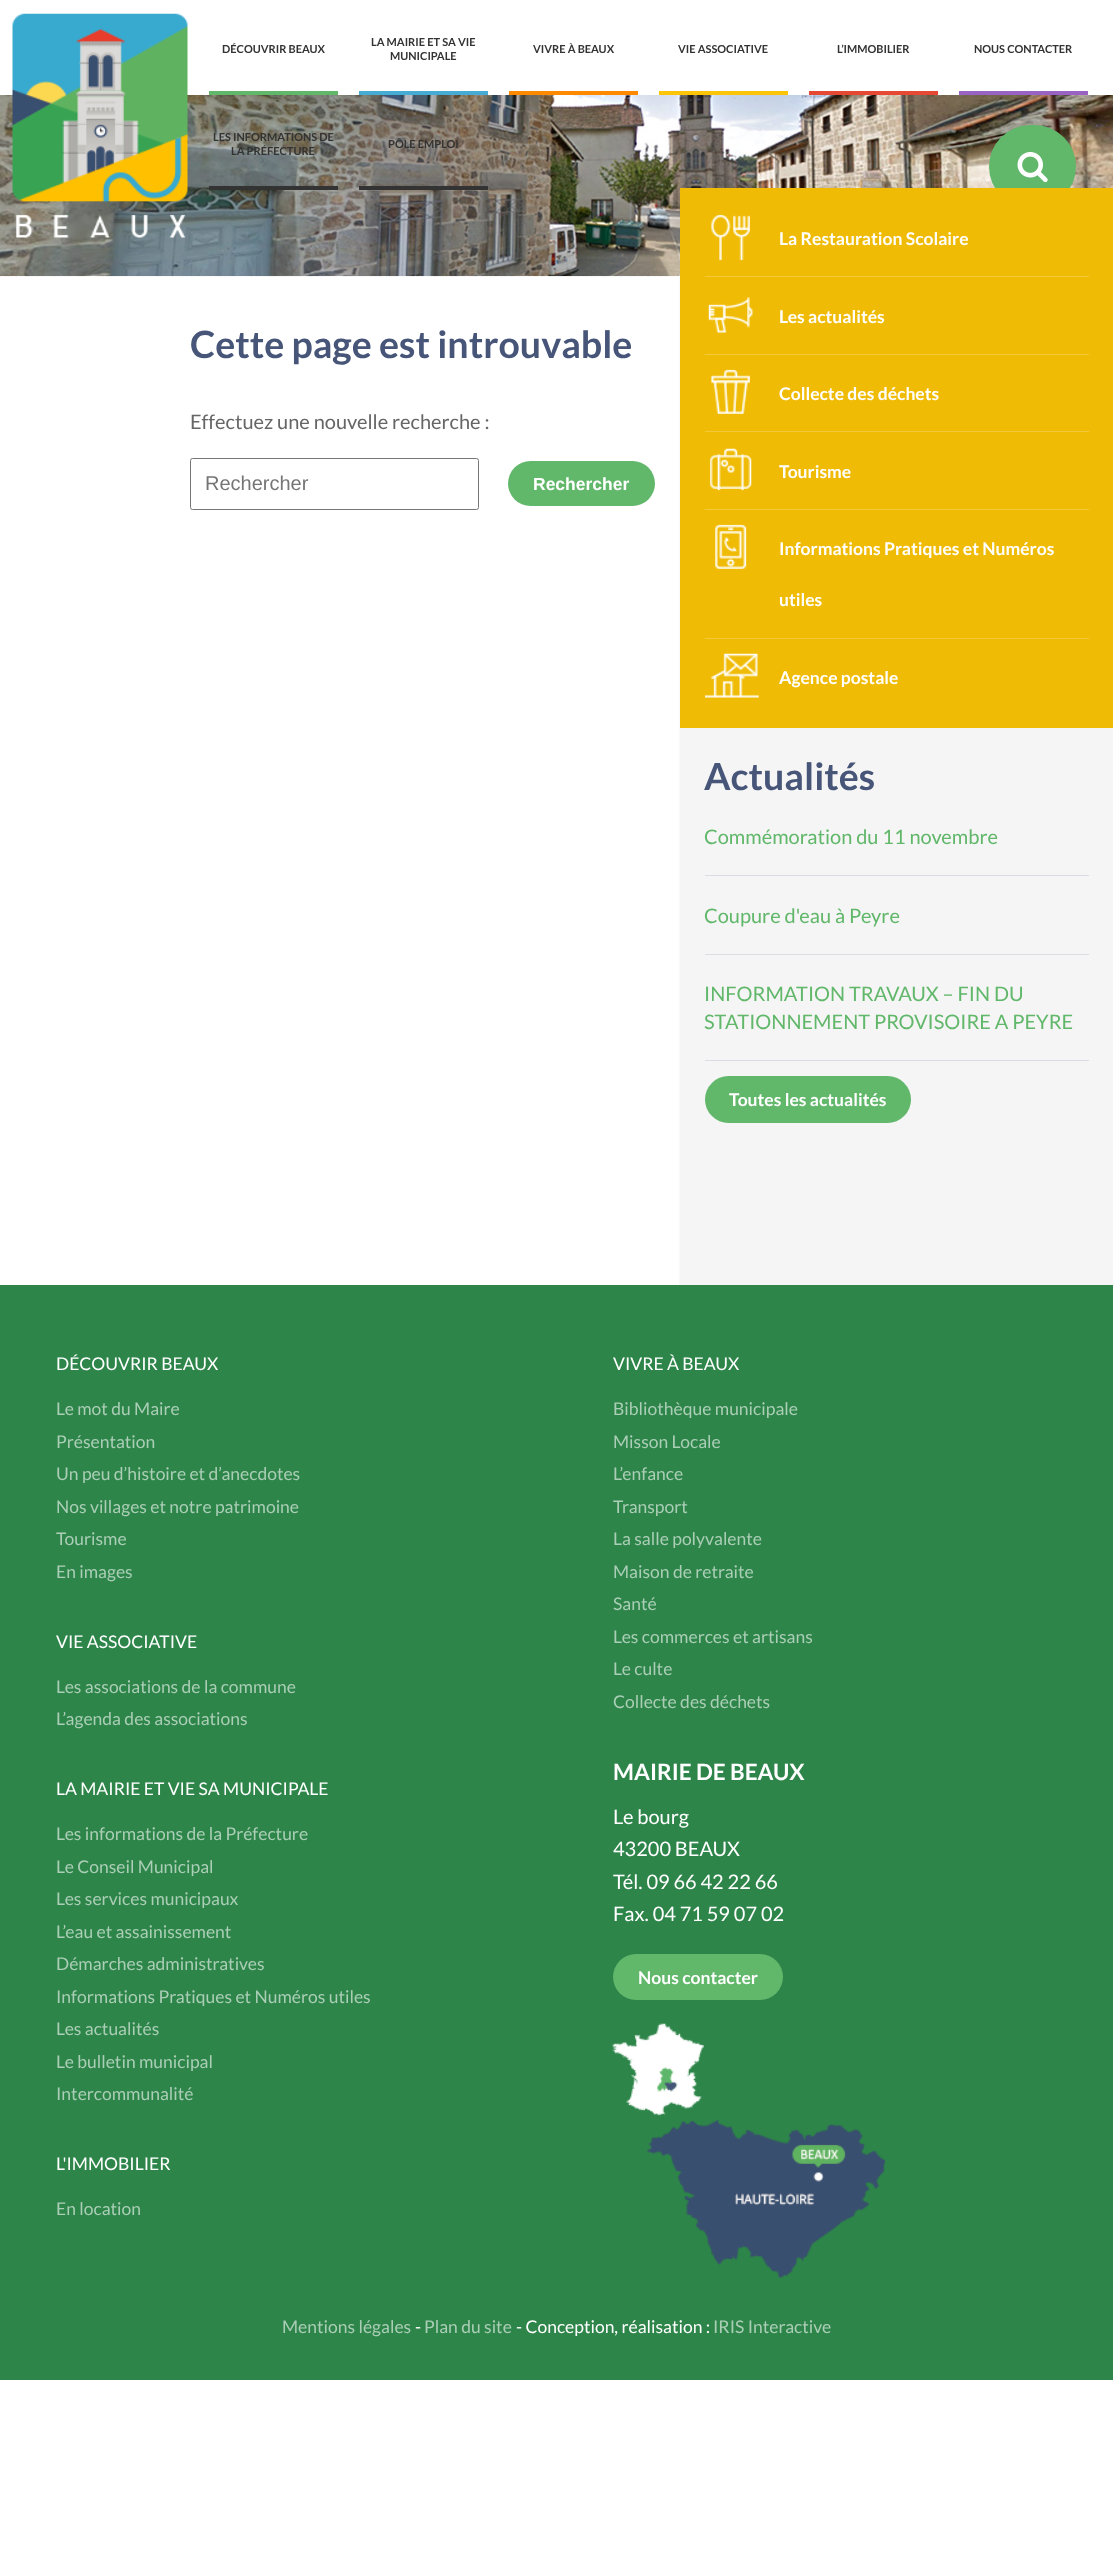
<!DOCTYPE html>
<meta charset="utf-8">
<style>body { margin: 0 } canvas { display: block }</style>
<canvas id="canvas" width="1113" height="2571"></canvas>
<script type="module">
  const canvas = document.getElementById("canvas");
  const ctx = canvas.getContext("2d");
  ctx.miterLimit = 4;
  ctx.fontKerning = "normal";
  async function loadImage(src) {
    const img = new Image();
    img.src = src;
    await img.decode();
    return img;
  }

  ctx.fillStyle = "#ffffff";
  ctx.fillRect(0, 0, 1113, 2571);
  ctx.drawImage(await loadImage("img2.png"), 0, 95, 1113, 182);
  ctx.drawImage(await loadImage("img1.png"), 12, 13, 176, 225);
  ctx.font = "bold 11px Lato";
  ctx.fillStyle = "#333333";
  ctx.fillText("DÉCOUVRIR BEAUX", 222, 53);
  ctx.fillStyle = "#61b76a";
  ctx.fillRect(209, 91, 129, 4);
  ctx.fillStyle = "#333333";
  ctx.fillText("LA MAIRIE ET SA VIE", 371, 46);
  ctx.fillText("MUNICIPALE", 390, 60);
  ctx.fillStyle = "#47acd4";
  ctx.fillRect(359, 91, 129, 4);
  ctx.fillStyle = "#333333";
  ctx.fillText("VIVRE À BEAUX", 533, 53);
  ctx.fillStyle = "#ff8a00";
  ctx.fillRect(509, 91, 129, 4);
  ctx.fillStyle = "#333333";
  ctx.fillText("VIE ASSOCIATIVE", 678, 53);
  ctx.fillStyle = "#fcc507";
  ctx.fillRect(659, 91, 129, 4);
  ctx.fillStyle = "#333333";
  ctx.fillText("L’IMMOBILIER", 837, 53);
  ctx.fillStyle = "#e64933";
  ctx.fillRect(809, 91, 129, 4);
  ctx.fillStyle = "#333333";
  ctx.fillText("NOUS CONTACTER", 974, 53);
  ctx.fillStyle = "#9963c3";
  ctx.fillRect(959, 91, 129, 4);
  ctx.fillStyle = "#333333";
  ctx.fillText("LES INFORMATIONS DE", 213, 141);
  ctx.fillText("LA PRÉFECTURE", 231, 155);
  ctx.fillRect(209, 186, 129, 4);
  ctx.fillText("PÔLE EMPLOI", 388, 148);
  ctx.fillRect(359, 186, 129, 4);
  ctx.fillStyle = "#61b76a";
  ctx.beginPath();
  ctx.roundRect(989, 125, 87, 83, 41.5);
  ctx.fill();
  ctx.drawImage(await loadImage("img3.png"), 1017, 152, 31, 31);
  ctx.drawImage(await loadImage("img4.png"), 0, 276, 1113, 1009);
  ctx.font = "bold 37.5px Lato";
  ctx.fillStyle = "#465578";
  ctx.fillText("Cette page est introuvable", 190, 358);
  ctx.font = "20px Lato";
  ctx.fillStyle = "#666666";
  ctx.fillText("Effectuez une nouvelle recherche :", 190, 429);
  ctx.beginPath();
  ctx.roundRect(190.5, 458.5, 288, 51, 2);
  ctx.strokeStyle = "#767676";
  ctx.stroke();
  ctx.font = "20px Liberation Sans";
  ctx.fillStyle = "#757575";
  ctx.fillText("Rechercher", 205, 490);
  ctx.fillStyle = "#61b76a";
  ctx.beginPath();
  ctx.roundRect(508, 461, 147, 45, 22.5);
  ctx.fill();
  ctx.font = "bold 17.5px Liberation Sans";
  ctx.fillStyle = "#ffffff";
  ctx.fillText("Rechercher", 533, 490);
  ctx.fillStyle = "#f0bb05";
  ctx.fillRect(680, 188, 433, 540);
  ctx.drawImage(await loadImage("img5.png"), 711, 214, 39, 47);
  ctx.fillStyle = "#f3c937";
  ctx.fillRect(705, 276, 384, 1);
  ctx.font = "bold 17.5px Lato";
  ctx.fillStyle = "#ffffff";
  ctx.fillText("La Restauration Scolaire", 779, 245);
  ctx.drawImage(await loadImage("img6.png"), 708, 297, 45, 36);
  ctx.fillStyle = "#f3c937";
  ctx.fillRect(705, 354, 384, 1);
  ctx.fillStyle = "#ffffff";
  ctx.fillText("Les actualités", 779, 323);
  ctx.drawImage(await loadImage("img7.png"), 711, 369, 39, 45);
  ctx.fillStyle = "#f3c937";
  ctx.fillRect(705, 431, 384, 1);
  ctx.fillStyle = "#ffffff";
  ctx.fillText("Collecte des déchets", 779, 400);
  ctx.drawImage(await loadImage("img8.png"), 710, 448, 42, 43);
  ctx.fillStyle = "#f3c937";
  ctx.fillRect(705, 509, 384, 1);
  ctx.fillStyle = "#ffffff";
  ctx.fillText("Tourisme", 779, 478);
  ctx.drawImage(await loadImage("img9.png"), 715, 524, 32, 45);
  ctx.fillStyle = "#f3c937";
  ctx.fillRect(705, 638, 384, 1);
  ctx.fillStyle = "#ffffff";
  ctx.fillText("Informations Pratiques et Numéros", 779, 555);
  ctx.fillText("utiles", 779, 606);
  ctx.drawImage(await loadImage("img10.png"), 705, 653, 54, 45);
  ctx.fillText("Agence postale", 779, 684);
  ctx.font = "bold 37.5px Lato";
  ctx.fillStyle = "#465578";
  ctx.fillText("Actualités", 704, 790);
  ctx.fillStyle = "#dbdde2";
  ctx.fillRect(705, 875, 384, 1);
  ctx.font = "20px Lato";
  ctx.fillStyle = "#61b76a";
  ctx.fillText("Commémoration du 11 novembre", 704, 844);
  ctx.fillStyle = "#dbdde2";
  ctx.fillRect(705, 954, 384, 1);
  ctx.fillStyle = "#61b76a";
  ctx.fillText("Coupure d'eau à Peyre", 704, 923);
  ctx.fillStyle = "#dbdde2";
  ctx.fillRect(705, 1060, 384, 1);
  ctx.fillStyle = "#61b76a";
  ctx.fillText("INFORMATION TRAVAUX – FIN DU", 704, 1001);
  ctx.fillText("STATIONNEMENT PROVISOIRE A PEYRE", 704, 1029);
  ctx.beginPath();
  ctx.roundRect(705, 1076, 206, 47, 23.5);
  ctx.fill();
  ctx.font = "bold 17.5px Lato";
  ctx.fillStyle = "#ffffff";
  ctx.fillText("Toutes les actualités", 729, 1106);
  ctx.fillStyle = "#2d8549";
  ctx.fillRect(0, 1285, 1113, 1095);
  ctx.font = "17.5px Lato";
  ctx.fillStyle = "#ffffff";
  ctx.fillText("DÉCOUVRIR BEAUX", 56, 1370);
  ctx.fillStyle = "#abceb6";
  ctx.fillText("Le mot du Maire", 56, 1415);
  ctx.fillText("Présentation", 56, 1448);
  ctx.fillText("Un peu d’histoire et d’anecdotes", 56, 1480);
  ctx.fillText("Nos villages et notre patrimoine", 56, 1513);
  ctx.fillText("Tourisme", 56, 1545);
  ctx.fillText("En images", 56, 1578);
  ctx.fillStyle = "#ffffff";
  ctx.fillText("VIE ASSOCIATIVE", 56, 1648);
  ctx.fillStyle = "#abceb6";
  ctx.fillText("Les associations de la commune", 56, 1693);
  ctx.fillText("L’agenda des associations", 56, 1725);
  ctx.fillStyle = "#ffffff";
  ctx.fillText("LA MAIRIE ET VIE SA MUNICIPALE", 56, 1795);
  ctx.fillStyle = "#abceb6";
  ctx.fillText("Les informations de la Préfecture", 56, 1840);
  ctx.fillText("Le Conseil Municipal", 56, 1873);
  ctx.fillText("Les services municipaux", 56, 1905);
  ctx.fillText("L’eau et assainissement", 56, 1938);
  ctx.fillText("Démarches administratives", 56, 1970);
  ctx.fillText("Informations Pratiques et Numéros utiles", 56, 2003);
  ctx.fillText("Les actualités", 56, 2035);
  ctx.fillText("Le bulletin municipal", 56, 2068);
  ctx.fillText("Intercommunalité", 56, 2100);
  ctx.fillStyle = "#ffffff";
  ctx.fillText("L'IMMOBILIER", 56, 2170);
  ctx.fillStyle = "#abceb6";
  ctx.fillText("En location", 56, 2215);
  ctx.fillStyle = "#ffffff";
  ctx.fillText("VIVRE À BEAUX", 613, 1370);
  ctx.fillStyle = "#abceb6";
  ctx.fillText("Bibliothèque municipale", 613, 1415);
  ctx.fillText("Misson Locale", 613, 1448);
  ctx.fillText("L’enfance", 613, 1480);
  ctx.fillText("Transport", 613, 1513);
  ctx.fillText("La salle polyvalente", 613, 1545);
  ctx.fillText("Maison de retraite", 613, 1578);
  ctx.fillText("Santé", 613, 1610);
  ctx.fillText("Les commerces et artisans", 613, 1643);
  ctx.fillText("Le culte", 613, 1675);
  ctx.fillText("Collecte des déchets", 613, 1708);
  ctx.font = "bold 22.5px Lato";
  ctx.fillStyle = "#ffffff";
  ctx.fillText("MAIRIE DE BEAUX", 613, 1780);
  ctx.font = "20px Lato";
  ctx.fillText("Le bourg", 613, 1824);
  ctx.fillText("43200 BEAUX", 613, 1856);
  ctx.fillText("Tél. 09 66 42 22 66", 613, 1889);
  ctx.fillText("Fax. 04 71 59 07 02", 613, 1921);
  ctx.fillStyle = "#61b76a";
  ctx.beginPath();
  ctx.roundRect(613, 1954, 170, 46, 23);
  ctx.fill();
  ctx.font = "bold 17.5px Lato";
  ctx.fillStyle = "#ffffff";
  ctx.fillText("Nous contacter", 638, 1984);
  ctx.drawImage(await loadImage("img11.png"), 612, 2023, 273, 255);
  ctx.font = "17.5px Lato";
  ctx.fillStyle = "#abceb6";
  ctx.fillText("Mentions légales", 282, 2333);
  ctx.fillStyle = "#ffffff";
  ctx.fillText("-", 415, 2333);
  ctx.fillStyle = "#abceb6";
  ctx.fillText("Plan du site", 424, 2333);
  ctx.fillStyle = "#ffffff";
  ctx.fillText("- Conception, réalisation :", 516, 2333);
  ctx.fillStyle = "#abceb6";
  ctx.fillText("IRIS Interactive", 713, 2333);
</script>
